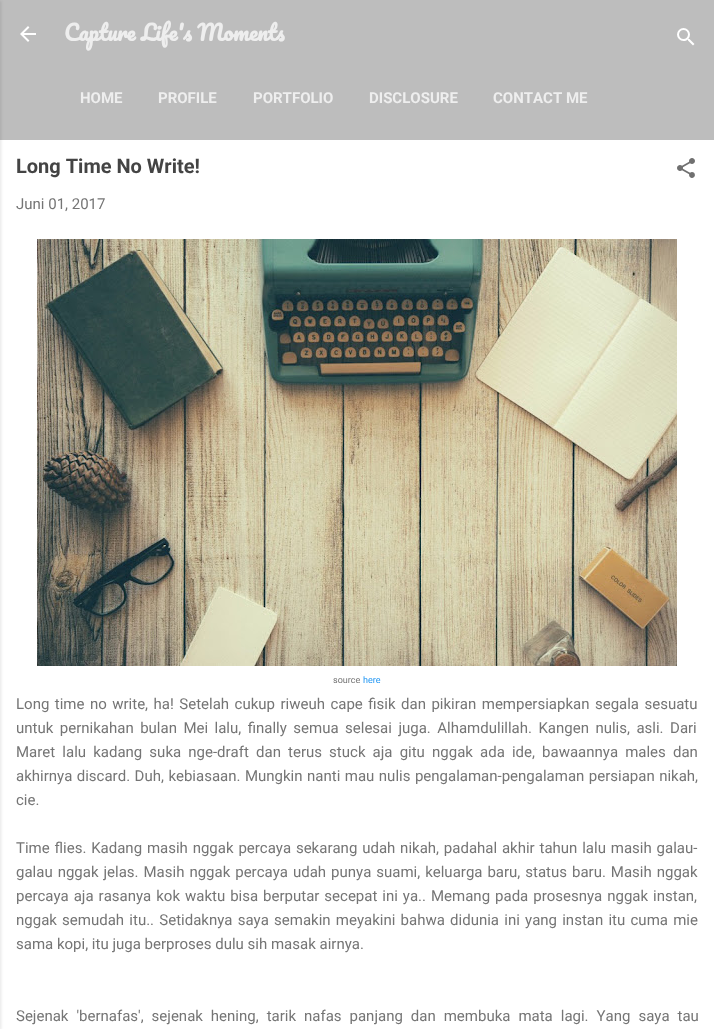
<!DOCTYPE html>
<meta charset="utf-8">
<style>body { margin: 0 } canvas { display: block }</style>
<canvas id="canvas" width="714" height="1029"></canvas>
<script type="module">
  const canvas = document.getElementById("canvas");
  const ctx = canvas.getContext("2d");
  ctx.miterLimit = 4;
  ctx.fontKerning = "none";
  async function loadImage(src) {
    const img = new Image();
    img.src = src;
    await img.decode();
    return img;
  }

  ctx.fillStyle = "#bdbdbd";
  ctx.fillRect(0, 0, 714, 1029);
  ctx.fillStyle = "#ffffff";
  ctx.fillRect(0, 140, 714, 889);
  ctx.fillStyle = "rgba(0, 0, 0, 0.1)";
  ctx.filter = "blur(1.5px)";
  ctx.beginPath();
  ctx.rect(-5, 1, 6, 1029);
  ctx.fill();
  ctx.filter = "none";
  ctx.drawImage(await loadImage("img1.png"), 20, 26, 16, 16);
  ctx.font = "bold 21.25px Pacifico";
  ctx.fillStyle = "#eeeeee";
  ctx.fillText("Capture Life's Moments", 64, 41);
  ctx.font = "bold 15px Roboto";
  ctx.fillText("HOME", 80, 103);
  ctx.fillText("PROFILE", 158, 103);
  ctx.fillText("PORTFOLIO", 253, 103);
  ctx.fillText("DISCLOSURE", 369, 103);
  ctx.fillText("CONTACT ME", 493, 103);
  ctx.drawImage(await loadImage("img2.png"), 677, 28, 18, 18);
  ctx.font = "bold 20px Roboto";
  ctx.fillStyle = "#444444";
  ctx.fillText("Long Time No Write!", 16, 173);
  ctx.drawImage(await loadImage("img3.png"), 677, 158, 18, 20);
  ctx.font = "15px Roboto";
  ctx.fillStyle = "#757575";
  ctx.fillText("Juni 01, 2017", 16, 209);
  ctx.drawImage(await loadImage("img4.png"), 37, 239, 640, 427);
  ctx.font = "9px Roboto";
  ctx.fillText("source", 333, 683);
  ctx.fillStyle = "#2196f3";
  ctx.fillText("here", 363, 683);
  ctx.wordSpacing = "1.75px";
  ctx.font = "15px Roboto";
  ctx.fillStyle = "#757575";
  ctx.fillText("Long time no write, ha! Setelah cukup riweuh cape fisik dan pikiran mempersiapkan segala sesuatu", 16, 709);
  ctx.wordSpacing = "2.75px";
  ctx.fillText("untuk pernikahan bulan Mei lalu, finally semua selesai juga. Alhamdulillah. Kangen nulis, asli. Dari", 16, 733);
  ctx.wordSpacing = "3.4px";
  ctx.fillText("Maret lalu kadang suka nge-draft dan terus stuck aja gitu nggak ada ide, bawaannya males dan", 16, 757);
  ctx.wordSpacing = "0.75px";
  ctx.fillText("akhirnya discard. Duh, kebiasaan. Mungkin nanti mau nulis pengalaman-pengalaman persiapan nikah,", 16, 781);
  ctx.wordSpacing = "0px";
  ctx.fillText("cie.", 16, 805);
  ctx.wordSpacing = "1.1px";
  ctx.fillText("Time flies. Kadang masih nggak percaya sekarang udah nikah, padahal akhir tahun lalu masih galau-", 16, 853);
  ctx.wordSpacing = "1.25px";
  ctx.fillText("galau nggak jelas. Masih nggak percaya udah punya suami, keluarga baru, status baru. Masih nggak", 16, 877);
  ctx.fillText("percaya aja rasanya kok waktu bisa berputar secepat ini ya.. Memang pada prosesnya nggak instan,", 16, 901);
  ctx.wordSpacing = "1.5px";
  ctx.fillText("nggak semudah itu.. Setidaknya saya semakin meyakini bahwa didunia ini yang instan itu cuma mie", 16, 925);
  ctx.wordSpacing = "0px";
  ctx.fillText("sama kopi, itu juga berproses dulu sih masak airnya.", 16, 949);
  ctx.wordSpacing = "4.25px";
  ctx.fillText("Sejenak 'bernafas', sejenak hening, tarik nafas panjang dan membuka mata lagi. Yang saya tau", 16, 1021);
</script>
